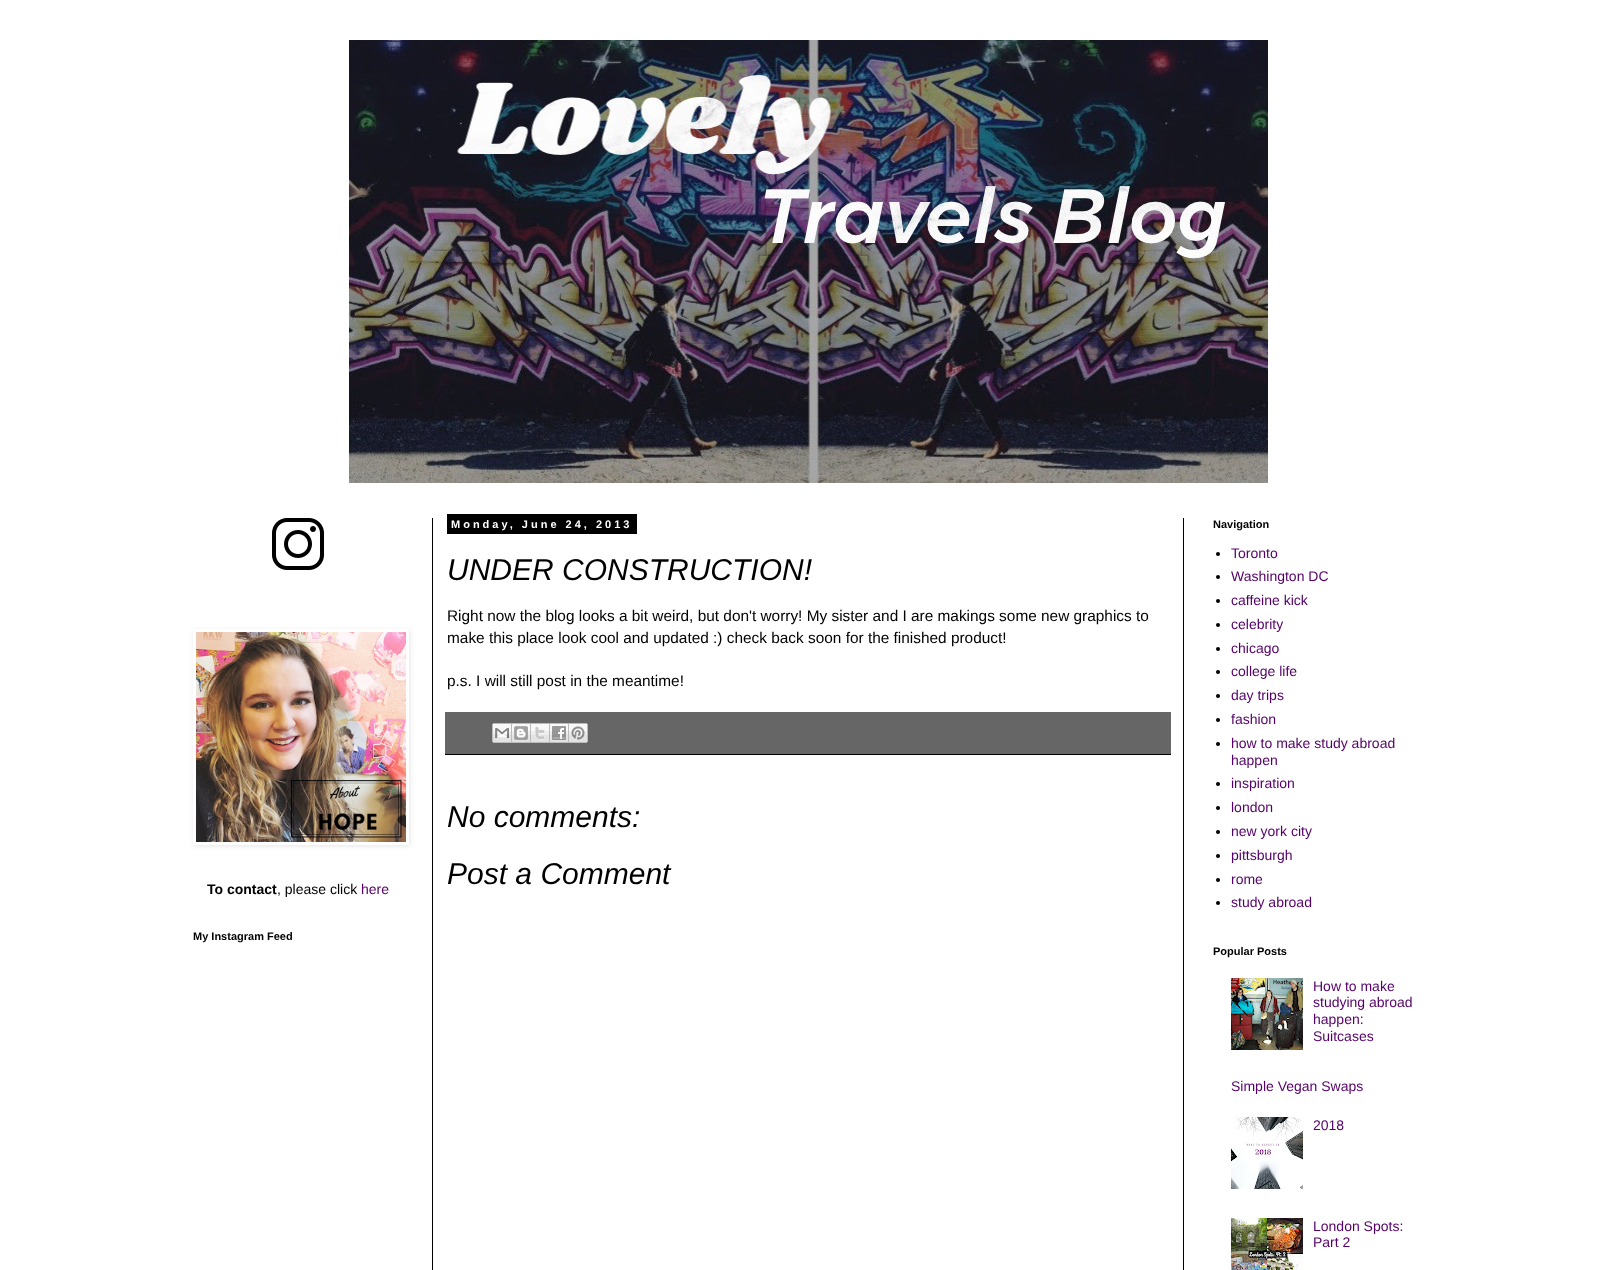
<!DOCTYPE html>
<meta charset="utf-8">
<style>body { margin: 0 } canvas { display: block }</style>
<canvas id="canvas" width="1616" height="1270"></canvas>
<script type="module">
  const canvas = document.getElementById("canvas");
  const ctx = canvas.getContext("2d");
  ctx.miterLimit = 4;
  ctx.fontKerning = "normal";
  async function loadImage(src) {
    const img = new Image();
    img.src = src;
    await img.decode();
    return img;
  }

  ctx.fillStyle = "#ffffff";
  ctx.fillRect(0, 0, 1616, 1270);
  ctx.drawImage(await loadImage("img1.png"), 349, 40, 919, 443);
  ctx.fillStyle = "#000000";
  ctx.fillRect(432, 518, 1, 752);
  ctx.fillRect(1183, 518, 1, 752);
  ctx.drawImage(await loadImage("img2.png"), 272, 518, 52, 52);
  ctx.save();
  ctx.beginPath();
  ctx.moveTo(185, 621);
  ctx.lineTo(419, 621);
  ctx.lineTo(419, 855);
  ctx.lineTo(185, 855);
  ctx.closePath();
  ctx.moveTo(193, 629);
  ctx.lineTo(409, 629);
  ctx.lineTo(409, 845);
  ctx.lineTo(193, 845);
  ctx.closePath();
  ctx.clip("evenodd");
  ctx.fillStyle = "rgba(0, 0, 0, 0.1)";
  ctx.filter = "blur(2.5px)";
  ctx.beginPath();
  ctx.rect(194, 630, 216, 216);
  ctx.fill();
  ctx.filter = "none";
  ctx.restore();
  ctx.drawImage(await loadImage("img3.png"), 196, 632, 210, 210);
  ctx.font = "bold 14px Liberation Sans";
  ctx.fillText("To contact", 207, 894);
  ctx.font = "14px Liberation Sans";
  ctx.fillText(", please click", 277, 894);
  ctx.fillStyle = "#550069";
  ctx.fillText("here", 361, 894);
  ctx.font = "bold 11px Liberation Sans";
  ctx.fillStyle = "#000000";
  ctx.fillText("My Instagram Feed", 193, 940);
  ctx.fillRect(447, 514, 190, 20);
  ctx.letterSpacing = "3px";
  ctx.fillStyle = "#ffffff";
  ctx.fillText("Monday, June 24, 2013", 451, 528);
  ctx.letterSpacing = "0px";
  ctx.font = "italic 30px Liberation Sans";
  ctx.fillStyle = "#000000";
  ctx.fillText("UNDER CONSTRUCTION!", 447, 580);
  ctx.font = "15.4px Liberation Sans";
  ctx.fillText("Right now the blog looks a bit weird, but don't worry! My sister and I are makings some new graphics to", 447, 621);
  ctx.fillText("make this place look cool and updated :) check back soon for the finished product!", 447, 643);
  ctx.fillText("p.s. I will still post in the meantime!", 447, 686);
  ctx.fillStyle = "#666666";
  ctx.fillRect(445, 712, 726, 42);
  ctx.fillStyle = "#000000";
  ctx.fillRect(445, 754, 726, 1);
  ctx.drawImage(await loadImage("img4.png"), 492, 723, 20, 20);
  ctx.drawImage(await loadImage("img5.png"), 512, 723, 19, 20);
  ctx.drawImage(await loadImage("img6.png"), 531, 723, 19, 20);
  ctx.drawImage(await loadImage("img7.png"), 550, 723, 19, 20);
  ctx.drawImage(await loadImage("img8.png"), 569, 723, 19, 20);
  ctx.font = "italic 30px Liberation Sans";
  ctx.fillText("No comments:", 447, 827);
  ctx.fillText("Post a Comment", 447, 884);
  ctx.font = "bold 11px Liberation Sans";
  ctx.fillText("Navigation", 1213, 528);
  ctx.beginPath();
  ctx.arc(1218, 554, 2, 0, Math.PI * 2);
  ctx.fill();
  ctx.font = "14px Liberation Sans";
  ctx.fillStyle = "#550069";
  ctx.fillText("Toronto", 1231, 558);
  ctx.fillStyle = "#000000";
  ctx.beginPath();
  ctx.arc(1218, 577, 2, 0, Math.PI * 2);
  ctx.fill();
  ctx.fillStyle = "#550069";
  ctx.fillText("Washington DC", 1231, 581);
  ctx.fillStyle = "#000000";
  ctx.beginPath();
  ctx.arc(1218, 601, 2, 0, Math.PI * 2);
  ctx.fill();
  ctx.fillStyle = "#550069";
  ctx.fillText("caffeine kick", 1231, 605);
  ctx.fillStyle = "#000000";
  ctx.beginPath();
  ctx.arc(1218, 625, 2, 0, Math.PI * 2);
  ctx.fill();
  ctx.fillStyle = "#550069";
  ctx.fillText("celebrity", 1231, 629);
  ctx.fillStyle = "#000000";
  ctx.beginPath();
  ctx.arc(1218, 649, 2, 0, Math.PI * 2);
  ctx.fill();
  ctx.fillStyle = "#550069";
  ctx.fillText("chicago", 1231, 653);
  ctx.fillStyle = "#000000";
  ctx.beginPath();
  ctx.arc(1218, 672, 2, 0, Math.PI * 2);
  ctx.fill();
  ctx.fillStyle = "#550069";
  ctx.fillText("college life", 1231, 676);
  ctx.fillStyle = "#000000";
  ctx.beginPath();
  ctx.arc(1218, 696, 2, 0, Math.PI * 2);
  ctx.fill();
  ctx.fillStyle = "#550069";
  ctx.fillText("day trips", 1231, 700);
  ctx.fillStyle = "#000000";
  ctx.beginPath();
  ctx.arc(1218, 720, 2, 0, Math.PI * 2);
  ctx.fill();
  ctx.fillStyle = "#550069";
  ctx.fillText("fashion", 1231, 724);
  ctx.fillStyle = "#000000";
  ctx.beginPath();
  ctx.arc(1218, 744, 2, 0, Math.PI * 2);
  ctx.fill();
  ctx.fillStyle = "#550069";
  ctx.fillText("how to make study abroad", 1231, 748);
  ctx.fillText("happen", 1231, 765);
  ctx.fillStyle = "#000000";
  ctx.beginPath();
  ctx.arc(1218, 784, 2, 0, Math.PI * 2);
  ctx.fill();
  ctx.fillStyle = "#550069";
  ctx.fillText("inspiration", 1231, 788);
  ctx.fillStyle = "#000000";
  ctx.beginPath();
  ctx.arc(1218, 808, 2, 0, Math.PI * 2);
  ctx.fill();
  ctx.fillStyle = "#550069";
  ctx.fillText("london", 1231, 812);
  ctx.fillStyle = "#000000";
  ctx.beginPath();
  ctx.arc(1218, 832, 2, 0, Math.PI * 2);
  ctx.fill();
  ctx.fillStyle = "#550069";
  ctx.fillText("new york city", 1231, 836);
  ctx.fillStyle = "#000000";
  ctx.beginPath();
  ctx.arc(1218, 856, 2, 0, Math.PI * 2);
  ctx.fill();
  ctx.fillStyle = "#550069";
  ctx.fillText("pittsburgh", 1231, 860);
  ctx.fillStyle = "#000000";
  ctx.beginPath();
  ctx.arc(1218, 880, 2, 0, Math.PI * 2);
  ctx.fill();
  ctx.fillStyle = "#550069";
  ctx.fillText("rome", 1231, 884);
  ctx.fillStyle = "#000000";
  ctx.beginPath();
  ctx.arc(1218, 903, 2, 0, Math.PI * 2);
  ctx.fill();
  ctx.fillStyle = "#550069";
  ctx.fillText("study abroad", 1231, 907);
  ctx.font = "bold 11px Liberation Sans";
  ctx.fillStyle = "#000000";
  ctx.fillText("Popular Posts", 1213, 955);
  ctx.drawImage(await loadImage("img9.png"), 1231, 978, 72, 72);
  ctx.font = "14px Liberation Sans";
  ctx.fillStyle = "#550069";
  ctx.fillText("How to make", 1313, 991);
  ctx.fillText("studying abroad", 1313, 1007);
  ctx.fillText("happen:", 1313, 1024);
  ctx.fillText("Suitcases", 1313, 1041);
  ctx.fillText("Simple Vegan Swaps", 1231, 1091);
  ctx.drawImage(await loadImage("img10.png"), 1231, 1117, 72, 72);
  ctx.fillText("2018", 1313, 1130);
  ctx.drawImage(await loadImage("img11.png"), 1231, 1218, 72, 52);
  ctx.fillText("London Spots:", 1313, 1231);
  ctx.fillText("Part 2", 1313, 1247);
</script>
